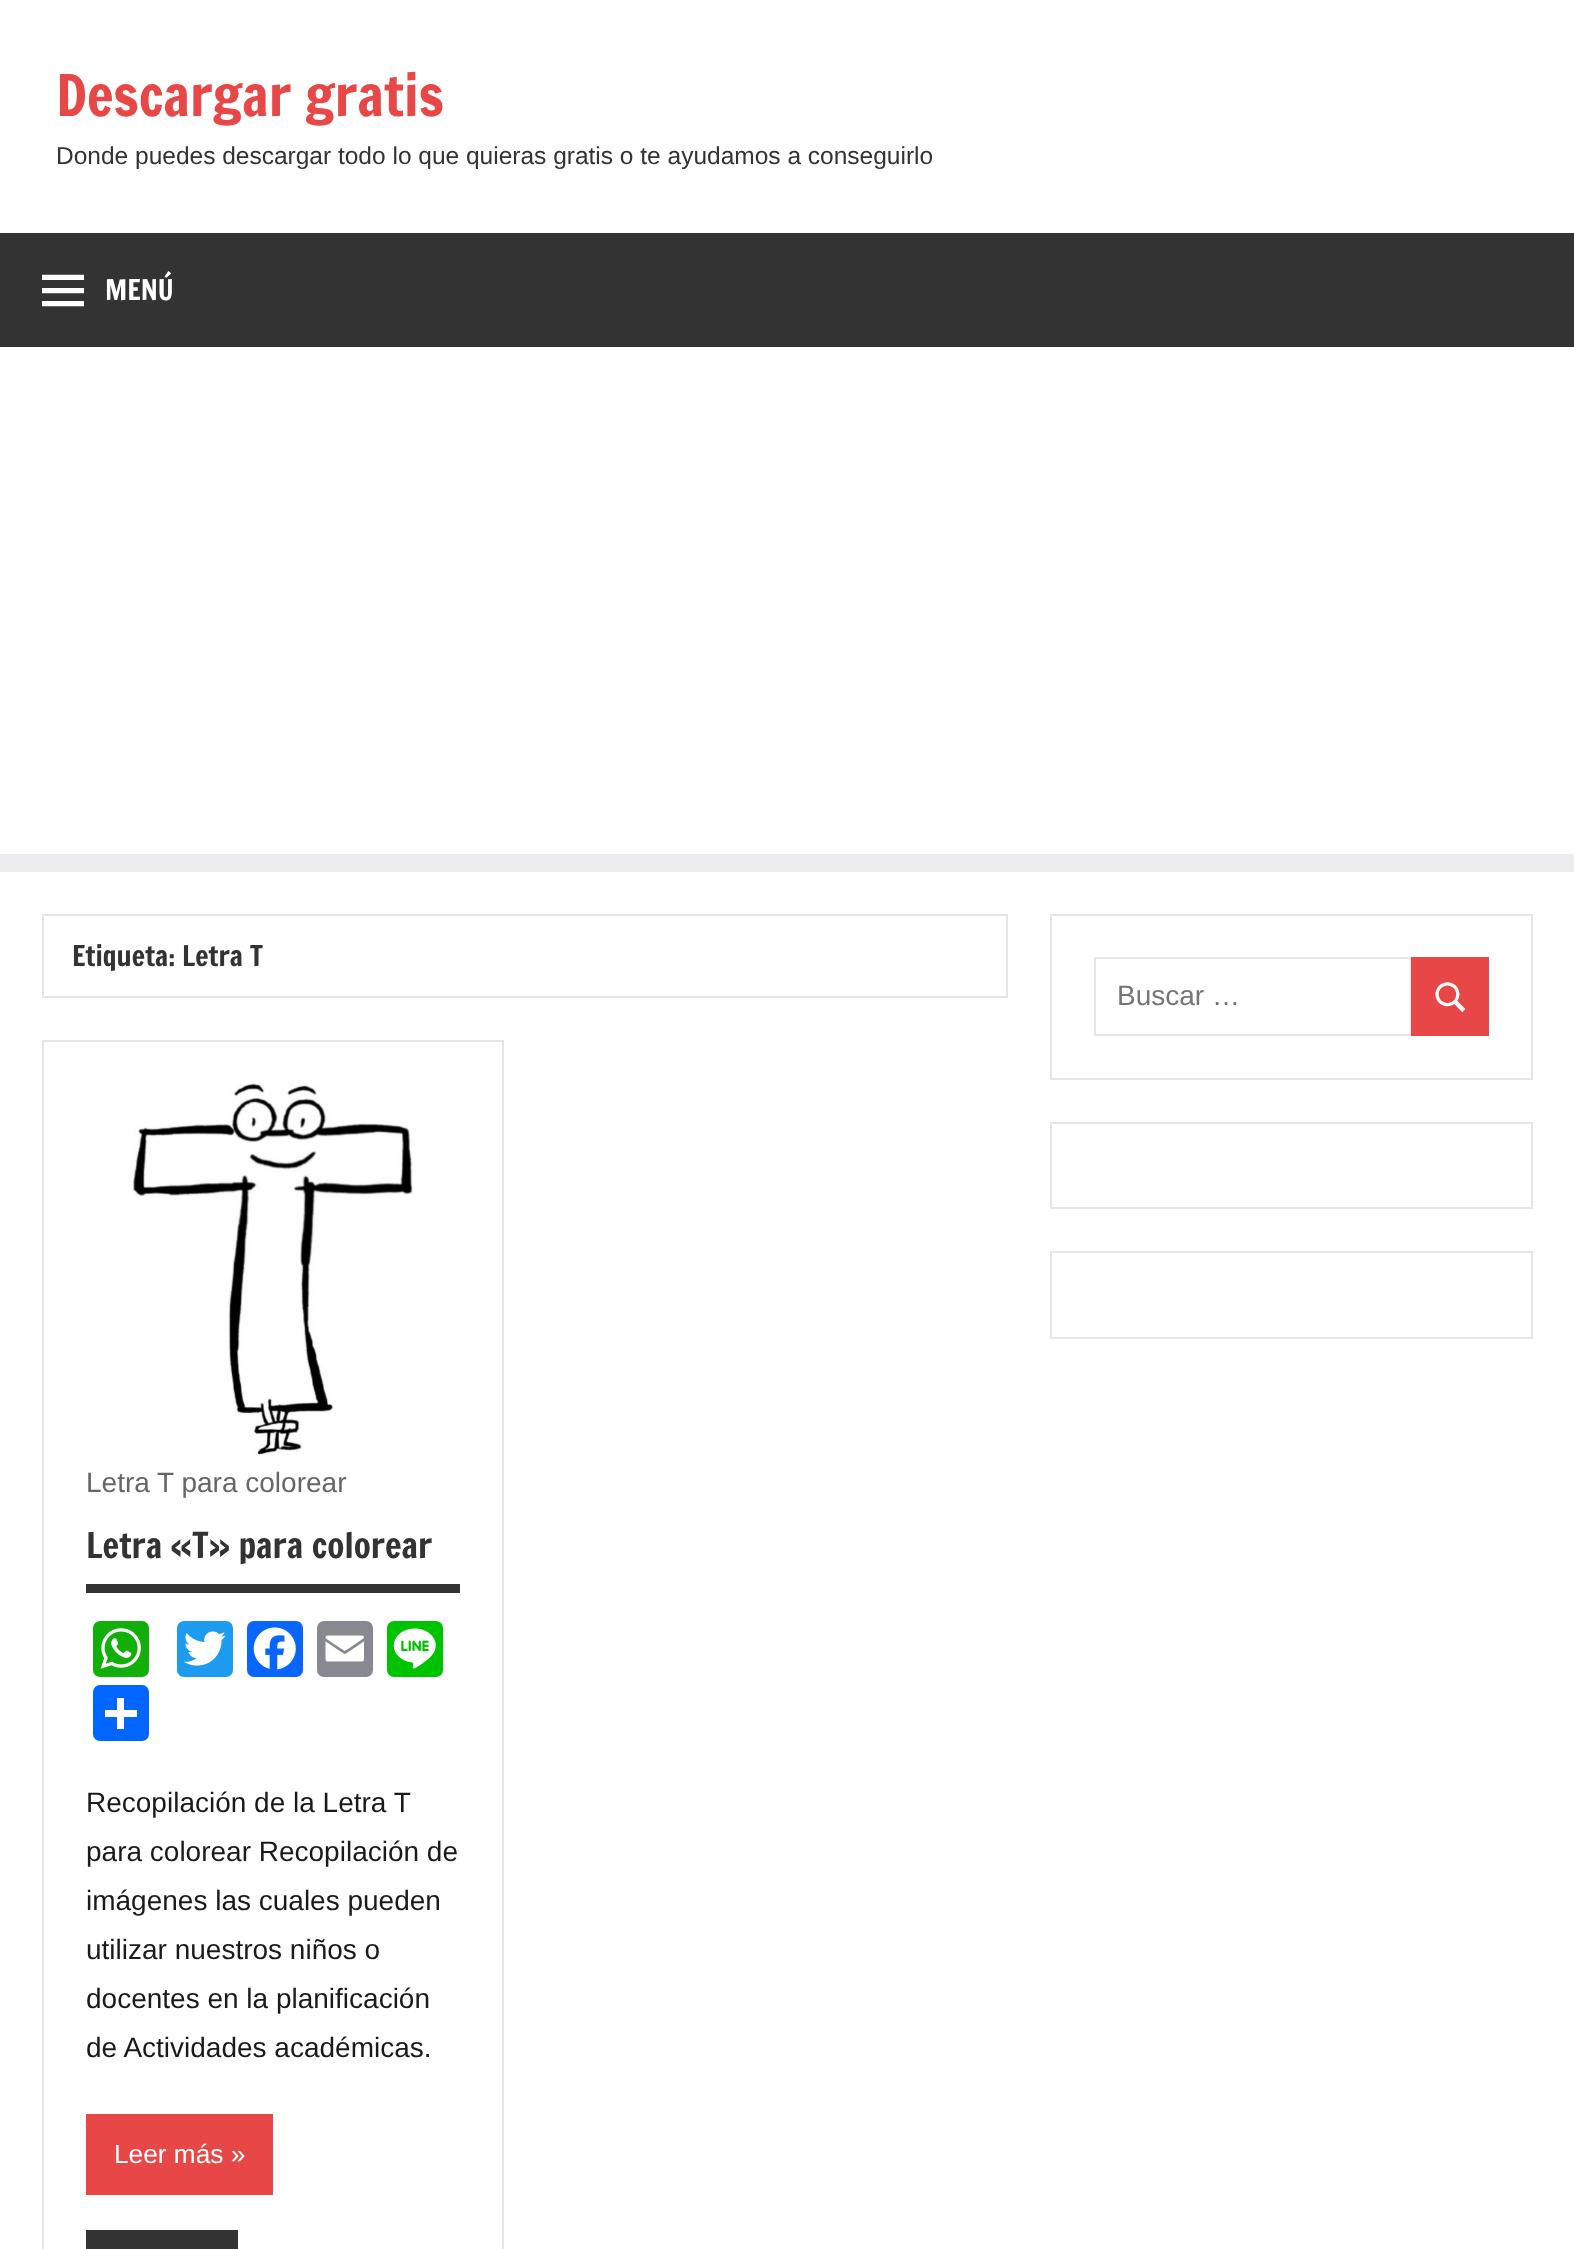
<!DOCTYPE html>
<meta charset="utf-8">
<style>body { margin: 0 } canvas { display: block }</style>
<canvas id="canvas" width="1574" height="2249"></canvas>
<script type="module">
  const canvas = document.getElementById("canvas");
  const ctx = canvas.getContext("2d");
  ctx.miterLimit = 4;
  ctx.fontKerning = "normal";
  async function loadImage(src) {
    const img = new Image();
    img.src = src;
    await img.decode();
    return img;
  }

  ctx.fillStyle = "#ededef";
  ctx.fillRect(0, 0, 1574, 2249);
  ctx.fillStyle = "#ffffff";
  ctx.fillRect(0, 0, 1574, 854);
  ctx.font = "56px Francois One";
  ctx.fillStyle = "#e84747";
  ctx.fillText("Descargar gratis", 56, 116);
  ctx.font = "24.5px Liberation Sans";
  ctx.fillStyle = "#333333";
  ctx.fillText("Donde puedes descargar todo lo que quieras gratis o te ayudamos a conseguirlo", 56, 164);
  ctx.fillRect(0, 233, 1574, 114);
  ctx.drawImage(await loadImage("img1.png"), 42, 274, 42, 33);
  ctx.font = "28px Francois One";
  ctx.fillStyle = "#ffffff";
  ctx.fillText("MENÚ", 105, 300);
  ctx.fillRect(0, 872, 1574, 1377);
  ctx.strokeStyle = "#e6e6e6";
  ctx.lineWidth = 2;
  ctx.strokeRect(43, 915, 964, 82);
  ctx.fillStyle = "#333333";
  ctx.fillText("Etiqueta: Letra T", 72, 966);
  ctx.strokeRect(43, 1041, 460, 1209);
  ctx.drawImage(await loadImage("img2.png"), 132, 1083, 281, 372);
  ctx.font = "28px Liberation Sans";
  ctx.fillStyle = "#666666";
  ctx.fillText("Letra T para colorear", 86, 1492);
  ctx.fillStyle = "#333333";
  ctx.fillRect(86, 1584, 374, 9);
  ctx.font = "35px Francois One";
  ctx.fillText("Letra «T» para colorear", 86, 1558);
  ctx.fillStyle = "#12af0a";
  ctx.beginPath();
  ctx.roundRect(93, 1621, 56, 56, 7);
  ctx.fill();
  ctx.drawImage(await loadImage("img3.png"), 100, 1628, 41, 41);
  ctx.fillStyle = "#1d9bf0";
  ctx.beginPath();
  ctx.roundRect(177, 1621, 56, 56, 7);
  ctx.fill();
  ctx.drawImage(await loadImage("img4.png"), 184, 1631, 42, 35);
  ctx.fillStyle = "#0866ff";
  ctx.beginPath();
  ctx.roundRect(247, 1621, 56, 56, 7);
  ctx.fill();
  ctx.drawImage(await loadImage("img5.png"), 253, 1627, 43, 43);
  ctx.fillStyle = "#888990";
  ctx.beginPath();
  ctx.roundRect(317, 1621, 56, 56, 7);
  ctx.fill();
  ctx.drawImage(await loadImage("img6.png"), 325, 1635, 39, 27);
  ctx.fillStyle = "#00c300";
  ctx.beginPath();
  ctx.roundRect(387, 1621, 56, 56, 7);
  ctx.fill();
  ctx.drawImage(await loadImage("img7.png"), 393, 1628, 43, 41);
  ctx.fillStyle = "#0166ff";
  ctx.beginPath();
  ctx.roundRect(93, 1685, 56, 56, 7);
  ctx.fill();
  ctx.fillStyle = "#ffffff";
  ctx.fillRect(117, 1698, 7, 31);
  ctx.fillRect(105, 1710, 32, 7);
  ctx.font = "28px Liberation Sans";
  ctx.fillStyle = "#1a1a1a";
  ctx.fillText("Recopilación de la Letra T", 86, 1812);
  ctx.fillText("para colorear Recopilación de", 86, 1861);
  ctx.fillText("imágenes las cuales pueden", 86, 1910);
  ctx.fillText("utilizar nuestros niños o", 86, 1959);
  ctx.fillText("docentes en la planificación", 86, 2008);
  ctx.fillText("de Actividades académicas.", 86, 2057);
  ctx.fillStyle = "#e84747";
  ctx.fillRect(86, 2114, 187, 81);
  ctx.font = "26.25px Liberation Sans";
  ctx.fillStyle = "#ffffff";
  ctx.fillText("Leer más »", 114, 2163);
  ctx.fillStyle = "#333333";
  ctx.fillRect(86, 2230, 152, 19);
  ctx.strokeRect(1051, 915, 481, 164);
  ctx.strokeRect(1095, 958, 316, 77);
  ctx.font = "28px Liberation Sans";
  ctx.fillStyle = "#757575";
  ctx.fillText("Buscar …", 1117, 1005);
  ctx.fillStyle = "#e84747";
  ctx.fillRect(1411, 957, 78, 79);
  ctx.drawImage(await loadImage("img8.png"), 1435, 982, 31, 31);
  ctx.strokeRect(1051, 1123, 481, 85);
  ctx.strokeRect(1051, 1252, 481, 86);
</script>
